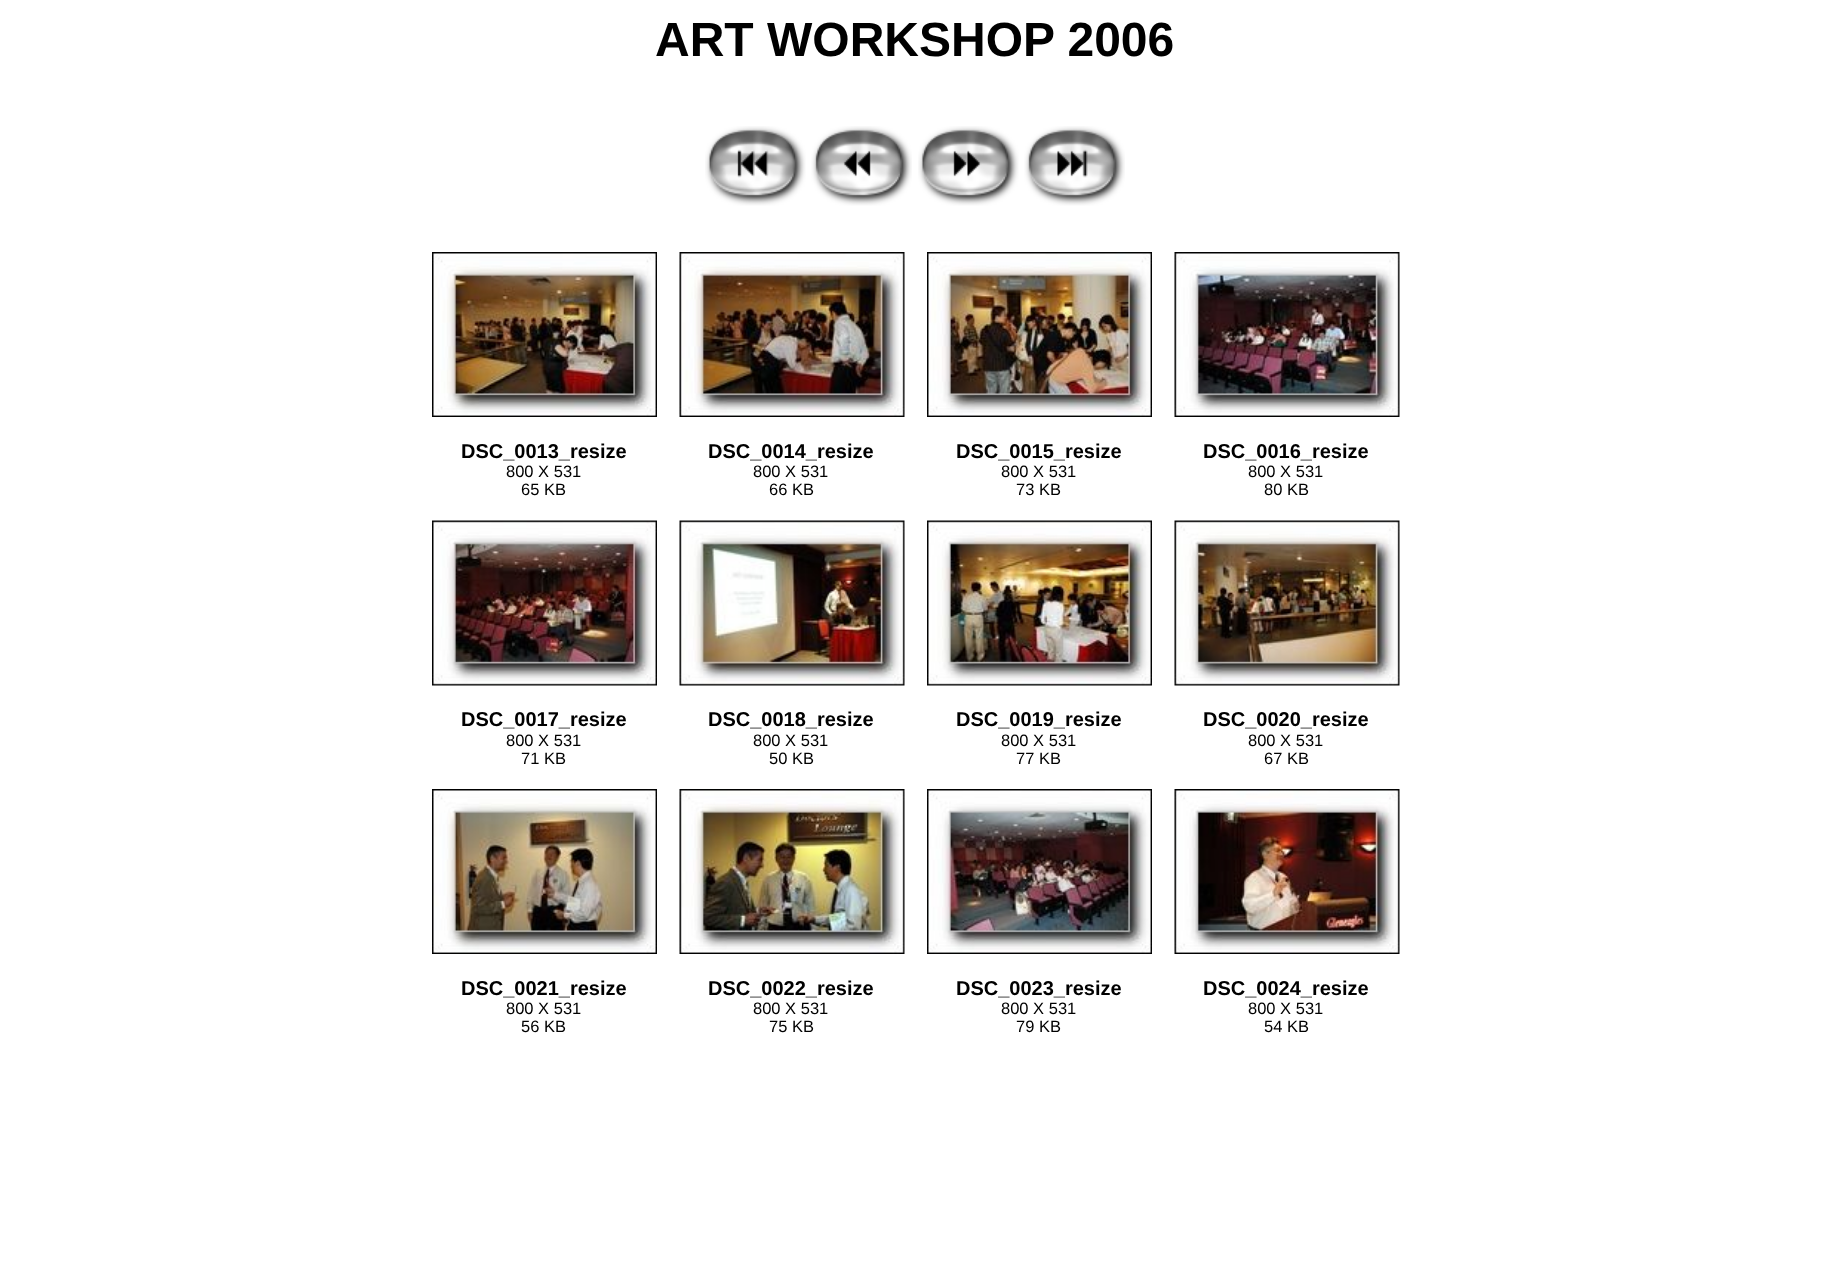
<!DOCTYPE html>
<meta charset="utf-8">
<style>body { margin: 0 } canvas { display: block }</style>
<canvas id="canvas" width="1830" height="1286"></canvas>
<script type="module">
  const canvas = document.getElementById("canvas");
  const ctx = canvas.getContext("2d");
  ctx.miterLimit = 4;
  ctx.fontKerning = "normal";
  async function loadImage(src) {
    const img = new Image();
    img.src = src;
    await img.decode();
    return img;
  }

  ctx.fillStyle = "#ffffff";
  ctx.fillRect(0, 0, 1830, 1286);
  ctx.font = "bold 48px Liberation Sans";
  ctx.fillStyle = "#000000";
  ctx.fillText("ART WORKSHOP 2006", 655, 56);
  ctx.drawImage(await loadImage("img1.png"), 705, 126, 101, 80);
  ctx.drawImage(await loadImage("img2.png"), 811, 126, 101, 80);
  ctx.drawImage(await loadImage("img3.png"), 918, 126, 101, 80);
  ctx.drawImage(await loadImage("img4.png"), 1024, 126, 101, 80);
  ctx.drawImage(await loadImage("img5.png"), 432, 252, 225, 165);
  ctx.drawImage(await loadImage("img6.png"), 679, 252, 226, 165);
  ctx.drawImage(await loadImage("img7.png"), 927, 252, 225, 165);
  ctx.drawImage(await loadImage("img8.png"), 1174, 252, 226, 165);
  ctx.font = "bold 20px Liberation Sans";
  ctx.fillText("DSC_0013_resize", 461, 458);
  ctx.font = "16.5px Liberation Sans";
  ctx.fillText("800 X 531", 506, 477);
  ctx.fillText("65 KB", 521, 495);
  ctx.font = "bold 20px Liberation Sans";
  ctx.fillText("DSC_0014_resize", 708, 458);
  ctx.font = "16.5px Liberation Sans";
  ctx.fillText("800 X 531", 753, 477);
  ctx.fillText("66 KB", 769, 495);
  ctx.font = "bold 20px Liberation Sans";
  ctx.fillText("DSC_0015_resize", 956, 458);
  ctx.font = "16.5px Liberation Sans";
  ctx.fillText("800 X 531", 1001, 477);
  ctx.fillText("73 KB", 1016, 495);
  ctx.font = "bold 20px Liberation Sans";
  ctx.fillText("DSC_0016_resize", 1203, 458);
  ctx.font = "16.5px Liberation Sans";
  ctx.fillText("800 X 531", 1248, 477);
  ctx.fillText("80 KB", 1264, 495);
  ctx.drawImage(await loadImage("img9.png"), 432, 520, 225, 166);
  ctx.drawImage(await loadImage("img10.png"), 679, 520, 226, 166);
  ctx.drawImage(await loadImage("img11.png"), 927, 520, 225, 166);
  ctx.drawImage(await loadImage("img12.png"), 1174, 520, 226, 166);
  ctx.font = "bold 20px Liberation Sans";
  ctx.fillText("DSC_0017_resize", 461, 726);
  ctx.font = "16.5px Liberation Sans";
  ctx.fillText("800 X 531", 506, 746);
  ctx.fillText("71 KB", 521, 764);
  ctx.font = "bold 20px Liberation Sans";
  ctx.fillText("DSC_0018_resize", 708, 726);
  ctx.font = "16.5px Liberation Sans";
  ctx.fillText("800 X 531", 753, 746);
  ctx.fillText("50 KB", 769, 764);
  ctx.font = "bold 20px Liberation Sans";
  ctx.fillText("DSC_0019_resize", 956, 726);
  ctx.font = "16.5px Liberation Sans";
  ctx.fillText("800 X 531", 1001, 746);
  ctx.fillText("77 KB", 1016, 764);
  ctx.font = "bold 20px Liberation Sans";
  ctx.fillText("DSC_0020_resize", 1203, 726);
  ctx.font = "16.5px Liberation Sans";
  ctx.fillText("800 X 531", 1248, 746);
  ctx.fillText("67 KB", 1264, 764);
  ctx.drawImage(await loadImage("img13.png"), 432, 789, 225, 165);
  ctx.drawImage(await loadImage("img14.png"), 679, 789, 226, 165);
  ctx.drawImage(await loadImage("img15.png"), 927, 789, 225, 165);
  ctx.drawImage(await loadImage("img16.png"), 1174, 789, 226, 165);
  ctx.font = "bold 20px Liberation Sans";
  ctx.fillText("DSC_0021_resize", 461, 995);
  ctx.font = "16.5px Liberation Sans";
  ctx.fillText("800 X 531", 506, 1014);
  ctx.fillText("56 KB", 521, 1032);
  ctx.font = "bold 20px Liberation Sans";
  ctx.fillText("DSC_0022_resize", 708, 995);
  ctx.font = "16.5px Liberation Sans";
  ctx.fillText("800 X 531", 753, 1014);
  ctx.fillText("75 KB", 769, 1032);
  ctx.font = "bold 20px Liberation Sans";
  ctx.fillText("DSC_0023_resize", 956, 995);
  ctx.font = "16.5px Liberation Sans";
  ctx.fillText("800 X 531", 1001, 1014);
  ctx.fillText("79 KB", 1016, 1032);
  ctx.font = "bold 20px Liberation Sans";
  ctx.fillText("DSC_0024_resize", 1203, 995);
  ctx.font = "16.5px Liberation Sans";
  ctx.fillText("800 X 531", 1248, 1014);
  ctx.fillText("54 KB", 1264, 1032);
</script>
